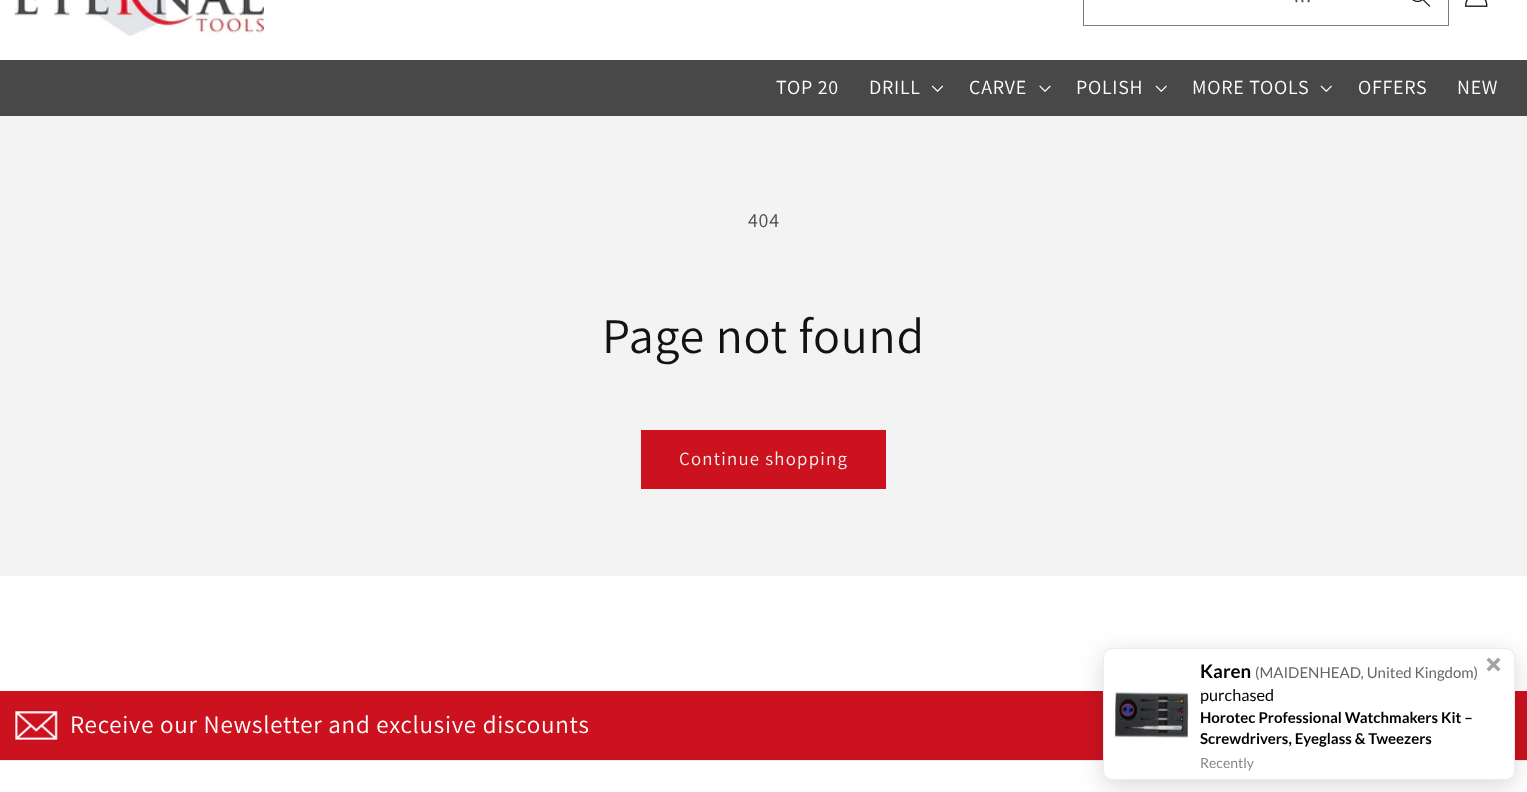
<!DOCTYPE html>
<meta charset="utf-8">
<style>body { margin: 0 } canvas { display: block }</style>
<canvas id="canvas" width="1527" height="792"></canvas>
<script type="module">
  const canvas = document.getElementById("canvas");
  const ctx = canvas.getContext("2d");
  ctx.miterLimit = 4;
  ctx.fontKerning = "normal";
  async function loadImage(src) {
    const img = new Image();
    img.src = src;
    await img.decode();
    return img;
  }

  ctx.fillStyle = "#f3f3f3";
  ctx.fillRect(0, 0, 1527, 792);
  ctx.fillStyle = "#ffffff";
  ctx.fillRect(0, 0, 1527, 60);
  ctx.drawImage(await loadImage("img1.png"), 14, 0, 250, 36);
  ctx.drawImage(await loadImage("img2.png"), 1412, 0, 19, 7);
  ctx.strokeStyle = "#7d7d7d";
  ctx.strokeRect(1083.5, -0.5, 365, 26);
  ctx.letterSpacing = "1.25px";
  ctx.font = "20px Assistant";
  ctx.fillStyle = "#4a4a4a";
  ctx.fillText("...", 1294, 2);
  ctx.drawImage(await loadImage("img3.png"), 1465, 0, 23, 7);
  ctx.fillStyle = "#484848";
  ctx.fillRect(0, 60, 1527, 56);
  ctx.letterSpacing = "0.75px";
  ctx.fillStyle = "#ffffff";
  ctx.fillText("TOP 20", 776, 94);
  ctx.fillText("DRILL", 869, 94);
  ctx.drawImage(await loadImage("img4.png"), 931, 85, 13, 7);
  ctx.fillText("CARVE", 969, 94);
  ctx.drawImage(await loadImage("img5.png"), 1039, 85, 12, 7);
  ctx.fillText("POLISH", 1076, 94);
  ctx.drawImage(await loadImage("img6.png"), 1155, 85, 12, 7);
  ctx.fillText("MORE TOOLS", 1192, 94);
  ctx.drawImage(await loadImage("img6.png"), 1320, 85, 12, 7);
  ctx.fillText("OFFERS", 1358, 94);
  ctx.fillText("NEW", 1457, 94);
  ctx.fillStyle = "#4a4a4a";
  ctx.fillText("404", 748, 227);
  ctx.font = "50px Assistant";
  ctx.fillStyle = "#121212";
  ctx.fillText("Page not found", 602, 353);
  ctx.fillStyle = "#cc121f";
  ctx.fillRect(641, 430, 245, 59);
  ctx.letterSpacing = "1.25px";
  ctx.font = "18.75px Assistant";
  ctx.fillStyle = "#f3f3f3";
  ctx.fillText("Continue shopping", 679, 465);
  ctx.fillStyle = "#ffffff";
  ctx.fillRect(0, 576, 1527, 115);
  ctx.fillStyle = "#cc121f";
  ctx.fillRect(0, 691, 1527, 69);
  ctx.strokeStyle = "#c3121e";
  ctx.strokeRect(14.5, 710.5, 44, 30);
  ctx.drawImage(await loadImage("img7.png"), 15, 711, 43, 29);
  ctx.letterSpacing = "0.75px";
  ctx.font = "25px Assistant";
  ctx.fillStyle = "#ffffff";
  ctx.fillText("Receive our Newsletter and exclusive discounts", 70, 733);
  ctx.fillRect(0, 761, 1527, 31);
  ctx.fillStyle = "#ececec";
  ctx.fillRect(0, 760, 1527, 1);
  ctx.fillStyle = "rgba(0, 0, 0, 0.15)";
  ctx.filter = "blur(12.5px)";
  ctx.beginPath();
  ctx.roundRect(1103, 654, 412, 132, 9);
  ctx.fill();
  ctx.filter = "none";
  ctx.fillStyle = "#ffffff";
  ctx.beginPath();
  ctx.roundRect(1103.5, 648.5, 411, 131, 8.5);
  ctx.fill();
  ctx.strokeStyle = "#ececec";
  ctx.stroke();
  ctx.drawImage(await loadImage("img8.png"), 1113, 691, 76, 48);
  ctx.letterSpacing = "0px";
  ctx.font = "bold 18.75px Lato";
  ctx.fillStyle = "#000000";
  ctx.fillText("Karen", 1200, 678);
  ctx.font = "15px Lato";
  ctx.fillStyle = "#666666";
  ctx.fillText("(MAIDENHEAD, United Kingdom)", 1255, 678);
  ctx.font = "16.25px Lato";
  ctx.fillStyle = "#000000";
  ctx.fillText("purchased", 1200, 701);
  ctx.font = "bold 15px Lato";
  ctx.fillText("Horotec Professional Watchmakers Kit –", 1200, 723);
  ctx.fillText("Screwdrivers, Eyeglass & Tweezers", 1200, 744);
  ctx.font = "14px Lato";
  ctx.fillStyle = "#888888";
  ctx.fillText("Recently", 1200, 768);
  ctx.fillStyle = "#a3a3a3";
  ctx.beginPath();
  ctx.moveTo(1489, 657.5);
  ctx.lineTo(1500.5, 669);
  ctx.lineTo(1498, 671.5);
  ctx.lineTo(1486.5, 660);
  ctx.closePath();
  ctx.fill();
  ctx.beginPath();
  ctx.moveTo(1498, 657.5);
  ctx.lineTo(1500.5, 660);
  ctx.lineTo(1489, 671.5);
  ctx.lineTo(1486.5, 669);
  ctx.closePath();
  ctx.fill();
</script>
